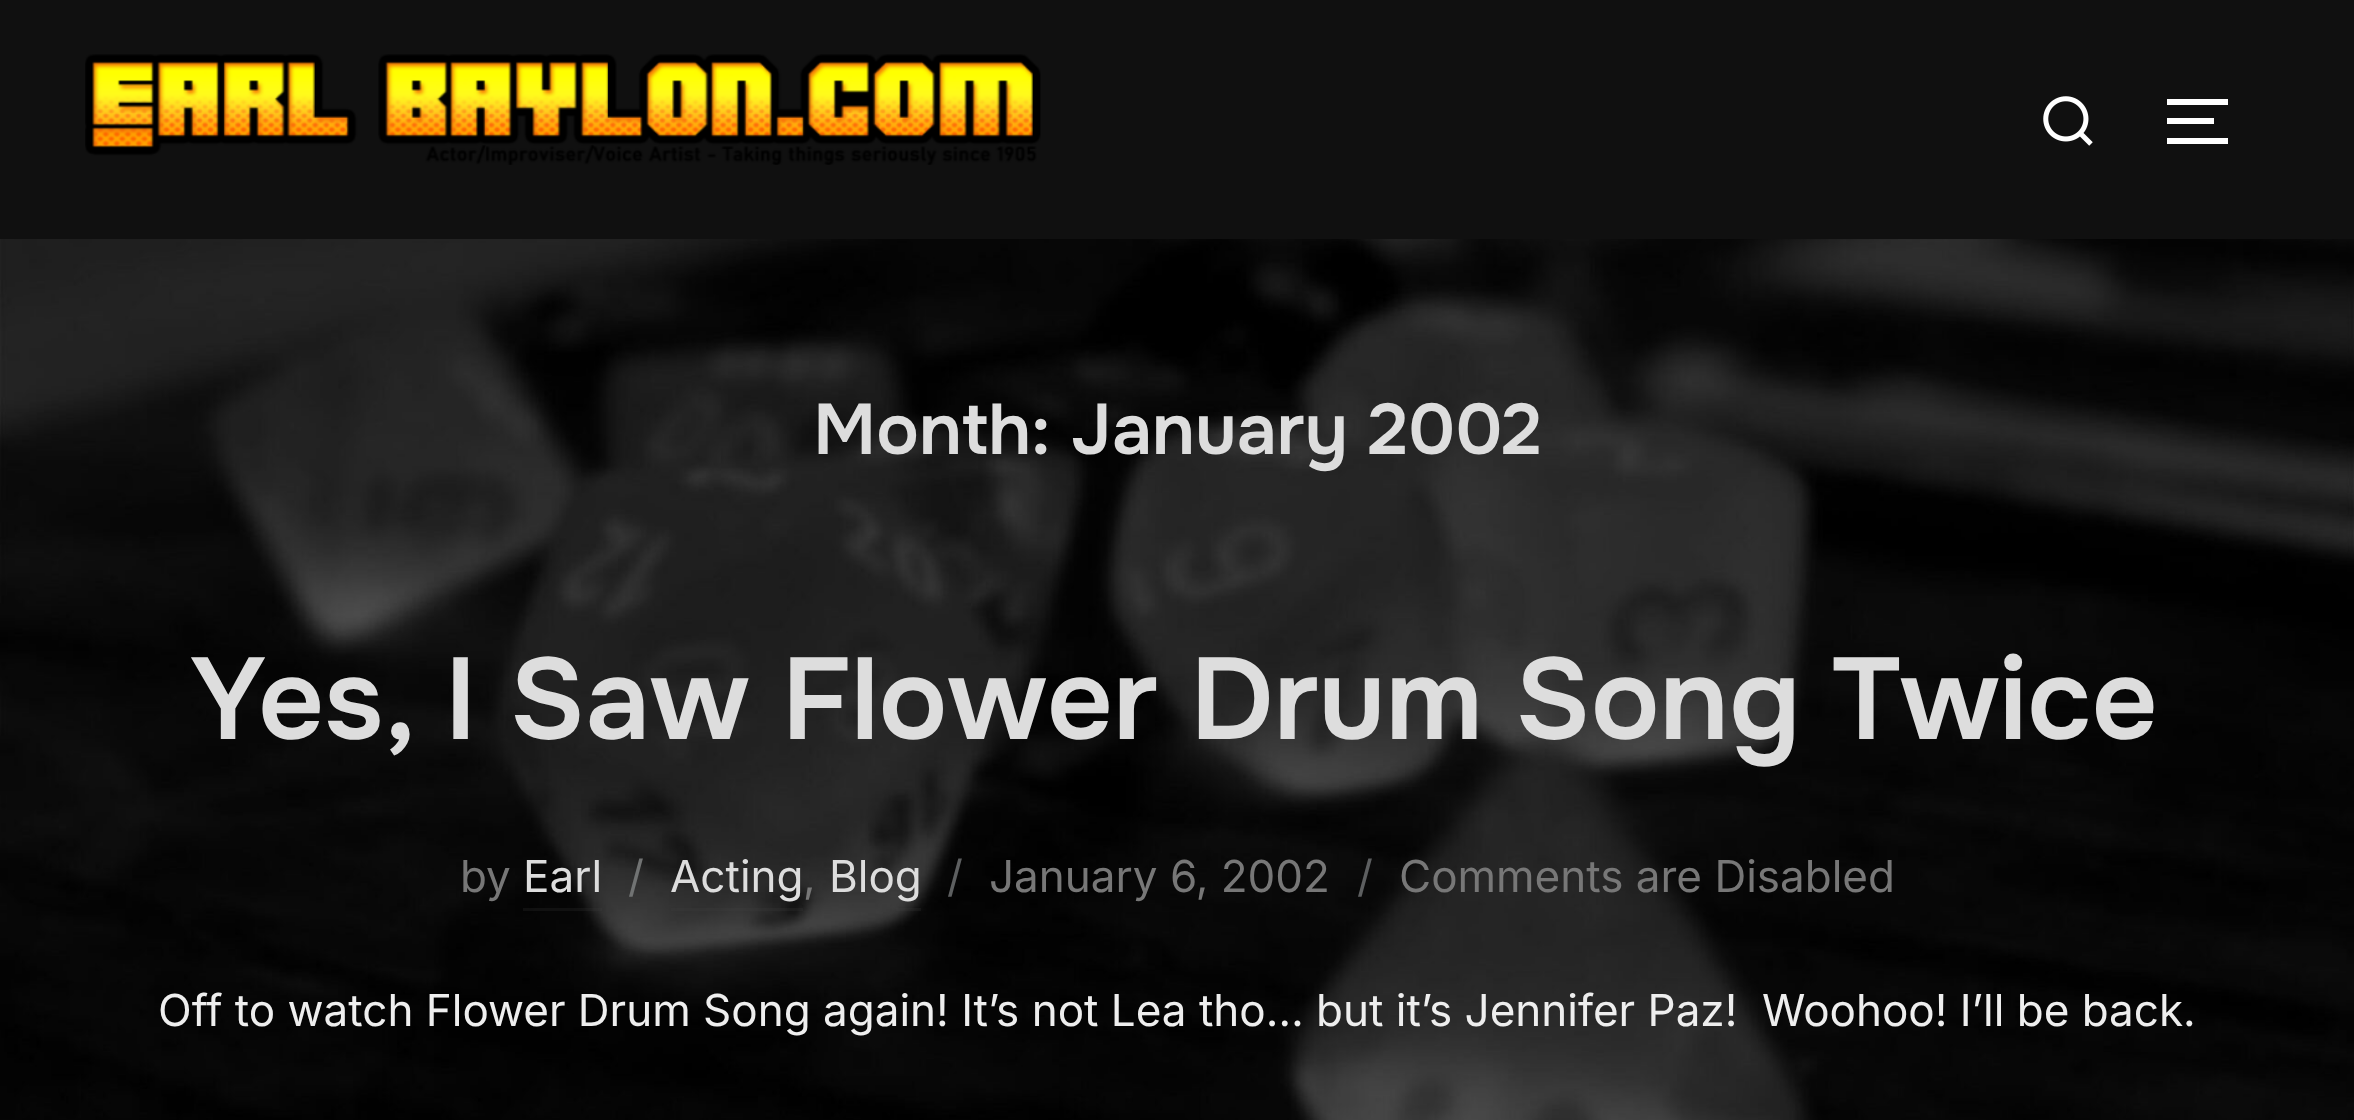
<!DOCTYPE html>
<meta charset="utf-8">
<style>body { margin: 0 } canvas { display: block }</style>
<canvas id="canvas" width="2354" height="1120"></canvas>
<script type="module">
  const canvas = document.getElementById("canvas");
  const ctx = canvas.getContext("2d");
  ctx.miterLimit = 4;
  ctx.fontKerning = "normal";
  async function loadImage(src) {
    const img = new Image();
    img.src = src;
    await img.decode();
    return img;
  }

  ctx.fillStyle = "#ffffff";
  ctx.fillRect(0, 0, 2354, 1120);
  ctx.drawImage(await loadImage("img1.png"), 0, 239, 2354, 881);
  ctx.fillStyle = "#101010";
  ctx.fillRect(0, 0, 2354, 239);
  ctx.drawImage(await loadImage("img2.png"), 85, 54, 956, 111);
  ctx.drawImage(await loadImage("img3.png"), 2043, 96, 50, 50);
  ctx.fillStyle = "#ffffff";
  ctx.fillRect(2167, 99, 61, 6);
  ctx.fillRect(2167, 118, 47, 6);
  ctx.fillRect(2167, 138, 61, 6);
  ctx.font = "600 71.5px Onest";
  ctx.fillStyle = "#dddddd";
  ctx.fillText("Month: January 2002", 813, 454);
  ctx.font = "600 115.5px Onest";
  ctx.fillText("Yes, I Saw Flower Drum Song Twice", 190, 739);
  ctx.font = "44px Inter";
  ctx.fillStyle = "#777777";
  ctx.fillText("by", 460, 892);
  ctx.fillStyle = "#dddddd";
  ctx.fillText("Earl", 523, 892);
  ctx.fillStyle = "rgba(68, 68, 68, 0.19)";
  ctx.fillRect(523, 908, 79, 3);
  ctx.fillStyle = "#717373";
  ctx.fillText("/", 628, 892);
  ctx.fillStyle = "#dddddd";
  ctx.fillText("Acting", 670, 892);
  ctx.fillStyle = "#777777";
  ctx.fillText(",", 803, 892);
  ctx.fillStyle = "rgba(68, 68, 68, 0.19)";
  ctx.fillRect(671, 908, 132, 3);
  ctx.fillStyle = "#dddddd";
  ctx.fillText("Blog", 829, 892);
  ctx.fillStyle = "rgba(68, 68, 68, 0.19)";
  ctx.fillRect(896, 908, 25, 3);
  ctx.fillStyle = "#5d5f60";
  ctx.fillText("/", 947, 892);
  ctx.fillStyle = "#777777";
  ctx.fillText("January 6, 2002", 989, 892);
  ctx.fillStyle = "#5d5f60";
  ctx.fillText("/", 1357, 892);
  ctx.fillStyle = "#777777";
  ctx.fillText("Comments are Disabled", 1399, 892);
  ctx.fillStyle = "#eeeeee";
  ctx.fillText("Off to watch Flower Drum Song again! It’s not Lea tho… but it’s Jennifer Paz!  Woohoo! I’ll be back.", 158, 1026);
</script>
